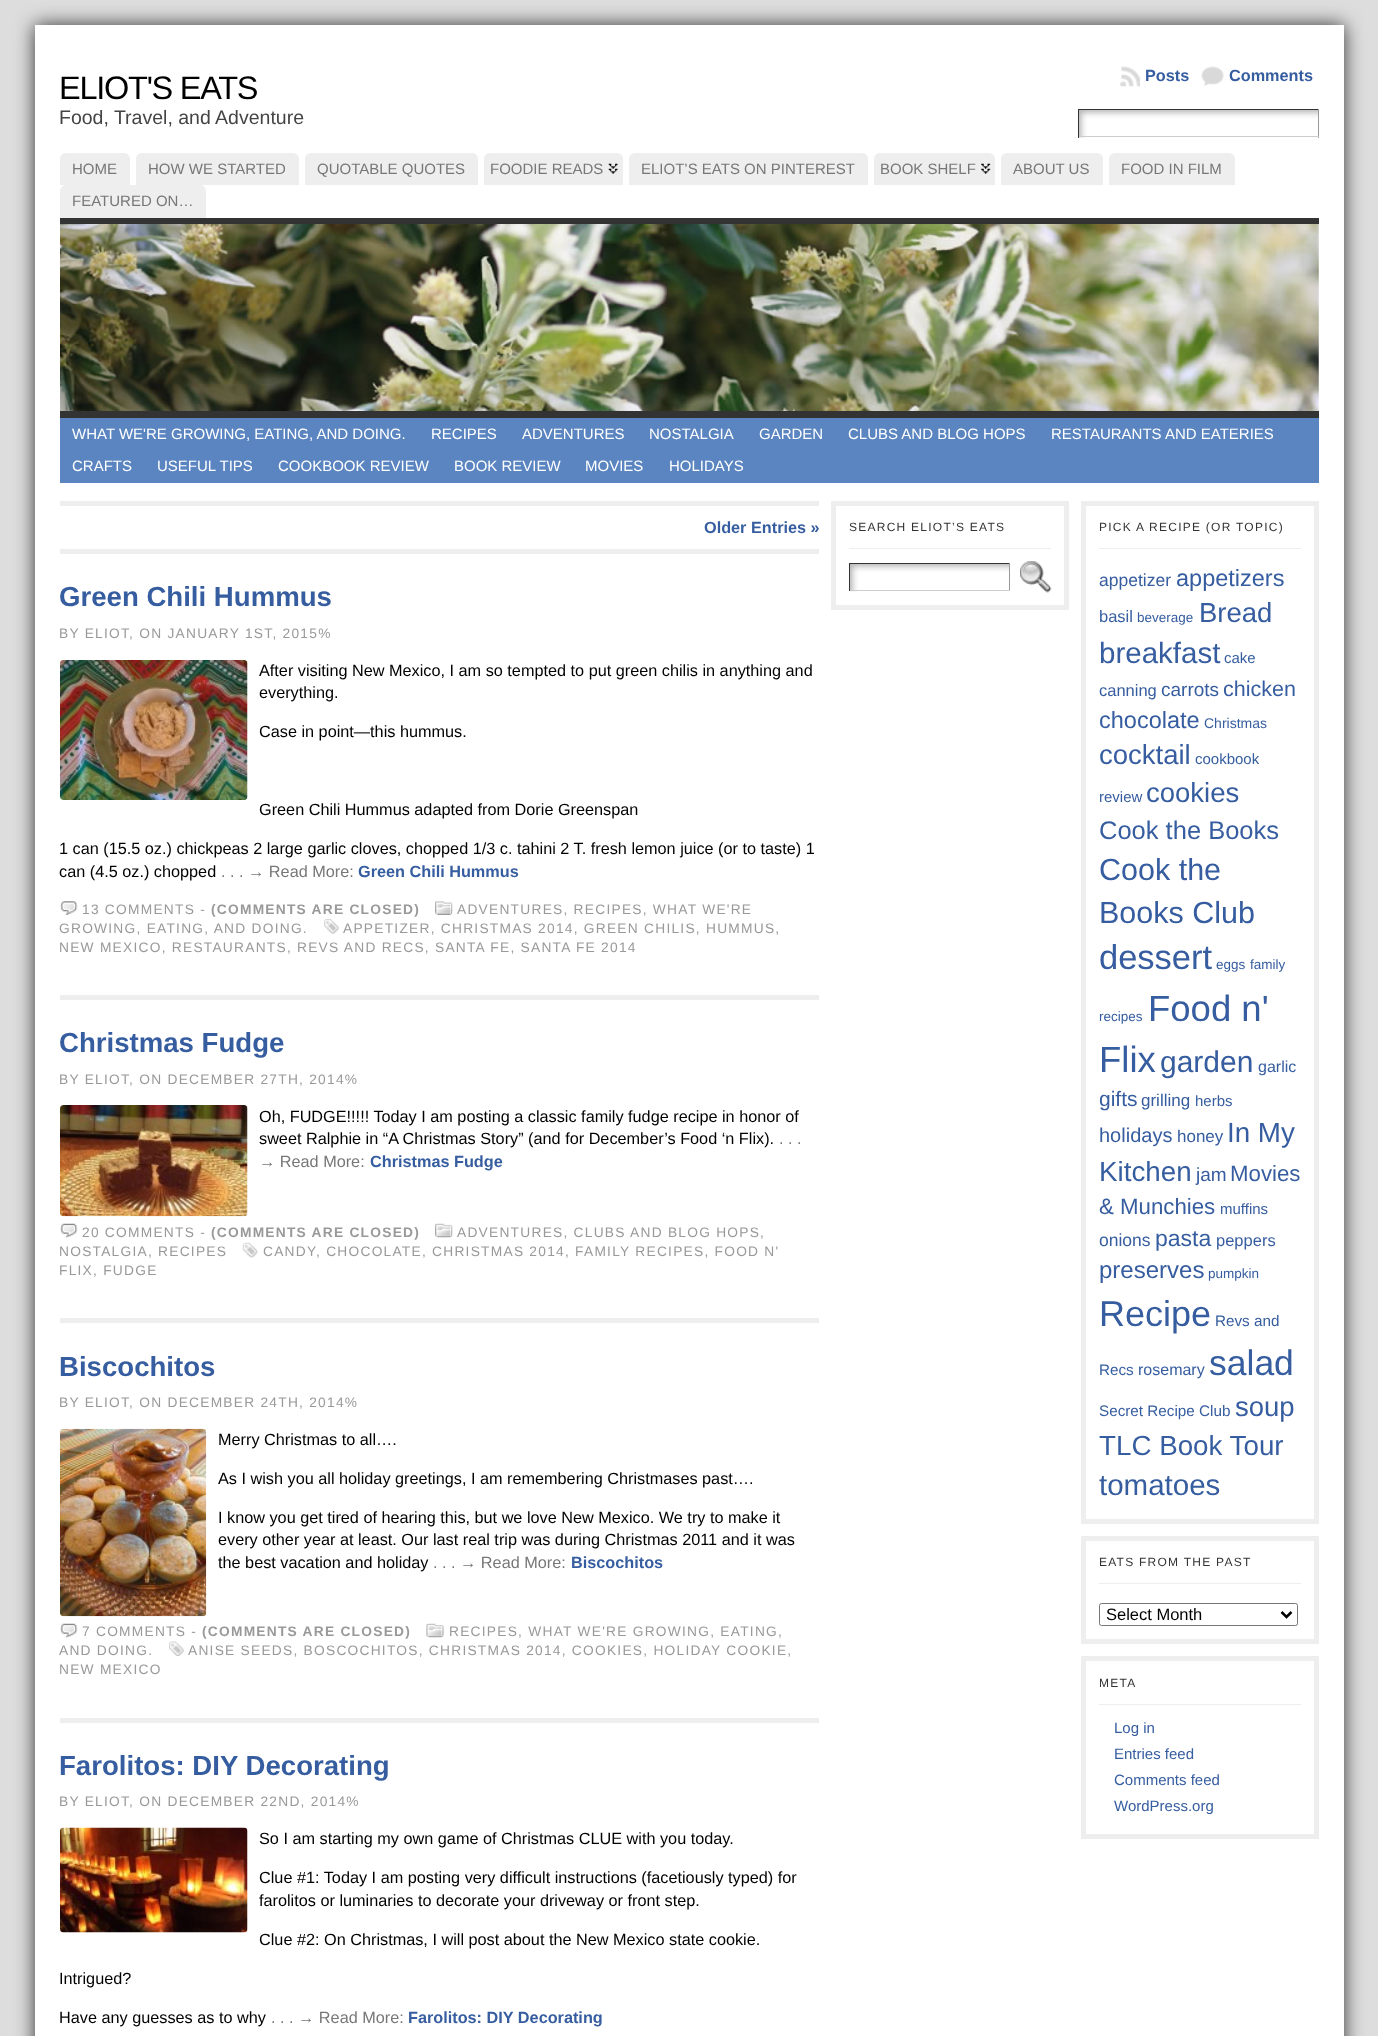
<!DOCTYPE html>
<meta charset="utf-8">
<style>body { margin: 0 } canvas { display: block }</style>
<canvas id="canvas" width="1378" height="2036"></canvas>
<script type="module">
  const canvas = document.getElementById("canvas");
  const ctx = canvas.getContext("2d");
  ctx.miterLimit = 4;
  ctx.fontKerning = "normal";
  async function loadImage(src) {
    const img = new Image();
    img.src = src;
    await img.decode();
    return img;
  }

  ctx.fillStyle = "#dddddd";
  ctx.fillRect(0, 0, 1378, 2036);
  ctx.fillStyle = "#333333";
  ctx.filter = "blur(9.5px)";
  ctx.beginPath();
  ctx.rect(35, 25, 1309, 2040);
  ctx.fill();
  ctx.filter = "none";
  ctx.fillStyle = "#ffffff";
  ctx.fillRect(35, 25, 1309, 2011);
  ctx.letterSpacing = "-1.25px";
  ctx.font = "32.5px Liberation Sans";
  ctx.fillStyle = "#000000";
  ctx.fillText("ELIOT'S EATS", 59, 99);
  ctx.letterSpacing = "0px";
  ctx.font = "19.5px Liberation Sans";
  ctx.fillStyle = "#444444";
  ctx.fillText("Food, Travel, and Adventure", 59, 124);
  ctx.drawImage(await loadImage("img1.png"), 1120, 66, 20, 21);
  ctx.font = "bold 16.25px Liberation Sans";
  ctx.fillStyle = "#365da0";
  ctx.fillText("Posts", 1145, 81);
  ctx.drawImage(await loadImage("img2.png"), 1201, 66, 23, 20);
  ctx.fillText("Comments", 1229, 81);
  ctx.drawImage(await loadImage("img3.png"), 1079, 110, 239, 28);
  ctx.fillStyle = "#333333";
  ctx.fillRect(1078, 109, 241, 1);
  ctx.fillStyle = "#999999";
  ctx.fillRect(1318, 109, 1, 29);
  ctx.fillStyle = "#cccccc";
  ctx.fillRect(1078, 136, 241, 1);
  ctx.fillStyle = "#333333";
  ctx.fillRect(1078, 109, 1, 29);
  ctx.fillStyle = "#eeeeee";
  ctx.beginPath();
  ctx.roundRect(60, 153, 70, 32, [6, 6, 0, 0]);
  ctx.fill();
  ctx.font = "15px Liberation Sans";
  ctx.fillStyle = "#777777";
  ctx.fillText("HOME", 72, 174);
  ctx.fillStyle = "#eeeeee";
  ctx.beginPath();
  ctx.roundRect(136, 153, 163, 32, [6, 6, 0, 0]);
  ctx.fill();
  ctx.fillStyle = "#777777";
  ctx.fillText("HOW WE STARTED", 148, 174);
  ctx.fillStyle = "#eeeeee";
  ctx.beginPath();
  ctx.roundRect(305, 153, 173, 32, [6, 6, 0, 0]);
  ctx.fill();
  ctx.fillStyle = "#777777";
  ctx.fillText("QUOTABLE QUOTES", 317, 174);
  ctx.fillStyle = "#eeeeee";
  ctx.beginPath();
  ctx.roundRect(484, 153, 139, 32, [6, 6, 0, 0]);
  ctx.fill();
  ctx.drawImage(await loadImage("img4.png"), 608, 163, 10, 11);
  ctx.fillStyle = "#777777";
  ctx.fillText("FOODIE READS", 490, 174);
  ctx.fillStyle = "#eeeeee";
  ctx.beginPath();
  ctx.roundRect(629, 153, 239, 32, [6, 6, 0, 0]);
  ctx.fill();
  ctx.fillStyle = "#777777";
  ctx.fillText("ELIOT’S EATS ON PINTEREST", 641, 174);
  ctx.fillStyle = "#eeeeee";
  ctx.beginPath();
  ctx.roundRect(874, 153, 121, 32, [6, 6, 0, 0]);
  ctx.fill();
  ctx.drawImage(await loadImage("img5.png"), 981, 163, 10, 11);
  ctx.fillStyle = "#777777";
  ctx.fillText("BOOK SHELF", 880, 174);
  ctx.fillStyle = "#eeeeee";
  ctx.beginPath();
  ctx.roundRect(1001, 153, 102, 32, [6, 6, 0, 0]);
  ctx.fill();
  ctx.fillStyle = "#777777";
  ctx.fillText("ABOUT US", 1013, 174);
  ctx.fillStyle = "#eeeeee";
  ctx.beginPath();
  ctx.roundRect(1109, 153, 126, 32, [6, 6, 0, 0]);
  ctx.fill();
  ctx.fillStyle = "#777777";
  ctx.fillText("FOOD IN FILM", 1121, 174);
  ctx.fillStyle = "#eeeeee";
  ctx.beginPath();
  ctx.roundRect(60, 185, 146, 33, [6, 6, 0, 0]);
  ctx.fill();
  ctx.fillStyle = "#777777";
  ctx.fillText("FEATURED ON…", 72, 206);
  ctx.drawImage(await loadImage("img6.png"), 60, 224, 1259, 187);
  ctx.fillStyle = "#333333";
  ctx.fillRect(60, 218, 1259, 6);
  ctx.fillRect(60, 411, 1259, 7);
  ctx.fillStyle = "#5a85c1";
  ctx.fillRect(60, 418, 1259, 65);
  ctx.fillStyle = "#ffffff";
  ctx.fillText("WHAT WE'RE GROWING, EATING, AND DOING.", 72, 439);
  ctx.fillText("RECIPES", 431, 439);
  ctx.fillText("ADVENTURES", 522, 439);
  ctx.fillText("NOSTALGIA", 649, 439);
  ctx.fillText("GARDEN", 759, 439);
  ctx.fillText("CLUBS AND BLOG HOPS", 848, 439);
  ctx.fillText("RESTAURANTS AND EATERIES", 1051, 439);
  ctx.fillText("CRAFTS", 72, 471);
  ctx.fillText("USEFUL TIPS", 157, 471);
  ctx.fillText("COOKBOOK REVIEW", 278, 471);
  ctx.fillText("BOOK REVIEW", 454, 471);
  ctx.fillText("MOVIES", 585, 471);
  ctx.fillText("HOLIDAYS", 669, 471);
  ctx.fillStyle = "#eeeeee";
  ctx.fillRect(60, 501, 759, 5);
  ctx.font = "bold 16.25px Liberation Sans";
  ctx.fillStyle = "#365da0";
  ctx.fillText("Older Entries »", 704, 533);
  ctx.fillStyle = "#eeeeee";
  ctx.fillRect(60, 549, 759, 5);
  ctx.font = "bold 27.6px Liberation Sans";
  ctx.fillStyle = "#365da0";
  ctx.fillText("Green Chili Hummus", 59, 606);
  ctx.letterSpacing = "1.25px";
  ctx.font = "13.75px Liberation Sans";
  ctx.fillStyle = "#999999";
  ctx.fillText("BY ELIOT, ON JANUARY 1ST, 2015%", 59, 638);
  ctx.drawImage(await loadImage("img7.png"), 60, 660, 188, 140);
  ctx.letterSpacing = "0px";
  ctx.font = "16.25px Liberation Sans";
  ctx.fillStyle = "#000000";
  ctx.fillText("After visiting New Mexico, I am so tempted to put green chilis in anything and", 259, 676);
  ctx.fillText("everything.", 259, 698);
  ctx.fillText("Case in point—this hummus.", 259, 737);
  ctx.fillText("Green Chili Hummus adapted from Dorie Greenspan", 259, 815);
  ctx.fillText("1 can (15.5 oz.) chickpeas 2 large garlic cloves, chopped 1/3 c. tahini 2 T. fresh lemon juice (or to taste) 1", 59, 854);
  ctx.fillText("can (4.5 oz.) chopped", 59, 877);
  ctx.fillStyle = "#777777";
  ctx.fillText(". . . → Read More:", 221, 877);
  ctx.font = "bold 16.25px Liberation Sans";
  ctx.fillStyle = "#365da0";
  ctx.fillText("Green Chili Hummus", 358, 877);
  ctx.drawImage(await loadImage("img8.png"), 60, 901, 18, 14);
  ctx.letterSpacing = "1.25px";
  ctx.font = "13.75px Liberation Sans";
  ctx.fillStyle = "#999999";
  ctx.fillText("13 COMMENTS -", 82, 914);
  ctx.font = "bold 13.75px Liberation Sans";
  ctx.fillText("(COMMENTS ARE CLOSED)", 211, 914);
  ctx.drawImage(await loadImage("img9.png"), 435, 901, 18, 14);
  ctx.font = "13.75px Liberation Sans";
  ctx.fillText("ADVENTURES, RECIPES, WHAT WE'RE", 457, 914);
  ctx.fillText("GROWING, EATING, AND DOING.", 59, 933);
  ctx.drawImage(await loadImage("img10.png"), 324, 919, 15, 15);
  ctx.fillText("APPETIZER, CHRISTMAS 2014, GREEN CHILIS, HUMMUS,", 343, 933);
  ctx.fillText("NEW MEXICO, RESTAURANTS, REVS AND RECS, SANTA FE, SANTA FE 2014", 59, 952);
  ctx.fillStyle = "#eeeeee";
  ctx.fillRect(60, 995, 759, 5);
  ctx.letterSpacing = "0px";
  ctx.font = "bold 27.6px Liberation Sans";
  ctx.fillStyle = "#365da0";
  ctx.fillText("Christmas Fudge", 59, 1052);
  ctx.letterSpacing = "1.25px";
  ctx.font = "13.75px Liberation Sans";
  ctx.fillStyle = "#999999";
  ctx.fillText("BY ELIOT, ON DECEMBER 27TH, 2014%", 59, 1084);
  ctx.drawImage(await loadImage("img11.png"), 60, 1105, 188, 112);
  ctx.letterSpacing = "0px";
  ctx.font = "16.25px Liberation Sans";
  ctx.fillStyle = "#000000";
  ctx.fillText("Oh, FUDGE!!!!! Today I am posting a classic family fudge recipe in honor of", 259, 1122);
  ctx.fillText("sweet Ralphie in “A Christmas Story” (and for December’s Food ‘n Flix).", 259, 1144);
  ctx.fillStyle = "#777777";
  ctx.fillText(". . .", 779, 1144);
  ctx.fillText("→ Read More:", 259, 1167);
  ctx.font = "bold 16.25px Liberation Sans";
  ctx.fillStyle = "#365da0";
  ctx.fillText("Christmas Fudge", 370, 1167);
  ctx.drawImage(await loadImage("img12.png"), 60, 1223, 18, 15);
  ctx.letterSpacing = "1.25px";
  ctx.font = "13.75px Liberation Sans";
  ctx.fillStyle = "#999999";
  ctx.fillText("20 COMMENTS -", 82, 1237);
  ctx.font = "bold 13.75px Liberation Sans";
  ctx.fillText("(COMMENTS ARE CLOSED)", 211, 1237);
  ctx.drawImage(await loadImage("img13.png"), 435, 1223, 18, 15);
  ctx.font = "13.75px Liberation Sans";
  ctx.fillText("ADVENTURES, CLUBS AND BLOG HOPS,", 457, 1237);
  ctx.fillText("NOSTALGIA, RECIPES", 59, 1256);
  ctx.drawImage(await loadImage("img14.png"), 242, 1242, 16, 16);
  ctx.fillText("CANDY", 263, 1256);
  ctx.fillText(", CHOCOLATE, CHRISTMAS 2014, FAMILY RECIPES, FOOD N'", 316, 1256);
  ctx.fillText("FLIX, FUDGE", 59, 1275);
  ctx.fillStyle = "#eeeeee";
  ctx.fillRect(60, 1318, 759, 5);
  ctx.letterSpacing = "0px";
  ctx.font = "bold 27.6px Liberation Sans";
  ctx.fillStyle = "#365da0";
  ctx.fillText("Biscochitos", 59, 1376);
  ctx.letterSpacing = "1.25px";
  ctx.font = "13.75px Liberation Sans";
  ctx.fillStyle = "#999999";
  ctx.fillText("BY ELIOT, ON DECEMBER 24TH, 2014%", 59, 1407);
  ctx.drawImage(await loadImage("img15.png"), 60, 1428, 147, 189);
  ctx.letterSpacing = "0px";
  ctx.font = "16.25px Liberation Sans";
  ctx.fillStyle = "#000000";
  ctx.fillText("Merry Christmas to all….", 218, 1445);
  ctx.fillText("As I wish you all holiday greetings, I am remembering Christmases past….", 218, 1484);
  ctx.fillText("I know you get tired of hearing this, but we love New Mexico. We try to make it", 218, 1523);
  ctx.fillText("every other year at least. Our last real trip was during Christmas 2011 and it was", 218, 1545);
  ctx.fillText("the best vacation and holiday", 218, 1568);
  ctx.fillStyle = "#777777";
  ctx.fillText(". . . → Read More:", 433, 1568);
  ctx.font = "bold 16.25px Liberation Sans";
  ctx.fillStyle = "#365da0";
  ctx.fillText("Biscochitos", 571, 1568);
  ctx.drawImage(await loadImage("img12.png"), 60, 1623, 18, 15);
  ctx.letterSpacing = "1.25px";
  ctx.font = "13.75px Liberation Sans";
  ctx.fillStyle = "#999999";
  ctx.fillText("7 COMMENTS -", 82, 1636);
  ctx.font = "bold 13.75px Liberation Sans";
  ctx.fillText("(COMMENTS ARE CLOSED)", 202, 1636);
  ctx.drawImage(await loadImage("img16.png"), 426, 1623, 18, 15);
  ctx.font = "13.75px Liberation Sans";
  ctx.fillText("RECIPES, WHAT WE'RE GROWING, EATING,", 449, 1636);
  ctx.fillText("AND DOING.", 59, 1655);
  ctx.drawImage(await loadImage("img17.png"), 169, 1641, 15, 16);
  ctx.fillText("ANISE SEEDS, BOSCOCHITOS, CHRISTMAS 2014, COOKIES, HOLIDAY COOKIE,", 188, 1655);
  ctx.fillText("NEW MEXICO", 59, 1674);
  ctx.fillStyle = "#eeeeee";
  ctx.fillRect(60, 1718, 759, 5);
  ctx.letterSpacing = "0px";
  ctx.font = "bold 27.6px Liberation Sans";
  ctx.fillStyle = "#365da0";
  ctx.fillText("Farolitos: DIY Decorating", 59, 1775);
  ctx.letterSpacing = "1.25px";
  ctx.font = "13.75px Liberation Sans";
  ctx.fillStyle = "#999999";
  ctx.fillText("BY ELIOT, ON DECEMBER 22ND, 2014%", 59, 1806);
  ctx.drawImage(await loadImage("img18.png"), 60, 1827, 188, 106);
  ctx.letterSpacing = "0px";
  ctx.font = "16.25px Liberation Sans";
  ctx.fillStyle = "#000000";
  ctx.fillText("So I am starting my own game of Christmas CLUE with you today.", 259, 1844);
  ctx.fillText("Clue #1: Today I am posting very difficult instructions (facetiously typed) for", 259, 1883);
  ctx.fillText("farolitos or luminaries to decorate your driveway or front step.", 259, 1906);
  ctx.fillText("Clue #2: On Christmas, I will post about the New Mexico state cookie.", 259, 1945);
  ctx.fillText("Intrigued?", 59, 1984);
  ctx.fillText("Have any guesses as to why", 59, 2023);
  ctx.fillStyle = "#777777";
  ctx.fillText(". . . → Read More:", 271, 2023);
  ctx.font = "bold 16.25px Liberation Sans";
  ctx.fillStyle = "#365da0";
  ctx.fillText("Farolitos: DIY Decorating", 408, 2023);
  ctx.strokeStyle = "#eeeeee";
  ctx.lineWidth = 5;
  ctx.strokeRect(833.5, 503.5, 233, 104);
  ctx.fillStyle = "#eeeeee";
  ctx.fillRect(849, 548, 202, 1);
  ctx.letterSpacing = "1.25px";
  ctx.font = "12px Liberation Sans";
  ctx.fillStyle = "#333333";
  ctx.fillText("SEARCH ELIOT’S EATS", 849, 531);
  ctx.drawImage(await loadImage("img19.png"), 850, 564, 160, 28);
  ctx.fillRect(849, 563, 161, 1);
  ctx.fillStyle = "#999999";
  ctx.fillRect(1009, 563, 1, 28);
  ctx.fillStyle = "#cccccc";
  ctx.fillRect(849, 590, 161, 1);
  ctx.fillStyle = "#333333";
  ctx.fillRect(849, 563, 1, 28);
  ctx.drawImage(await loadImage("img20.png"), 1020, 561, 32, 32);
  ctx.strokeRect(1083.5, 503.5, 233, 1018);
  ctx.fillStyle = "#eeeeee";
  ctx.fillRect(1099, 548, 202, 1);
  ctx.fillStyle = "#333333";
  ctx.fillText("PICK A RECIPE (OR TOPIC)", 1099, 531);
  ctx.letterSpacing = "0px";
  ctx.font = "17.5px Liberation Sans";
  ctx.fillStyle = "#365da0";
  ctx.fillText("appetizer", 1099, 586);
  ctx.font = "23.5px Liberation Sans";
  ctx.fillText("appetizers", 1176, 586);
  ctx.font = "16.5px Liberation Sans";
  ctx.fillText("basil", 1099, 622);
  ctx.font = "13.5px Liberation Sans";
  ctx.fillText("beverage", 1137, 622);
  ctx.font = "27.5px Liberation Sans";
  ctx.fillText("Bread", 1199, 622);
  ctx.font = "29.5px Liberation Sans";
  ctx.fillText("breakfast", 1099, 663);
  ctx.font = "15px Liberation Sans";
  ctx.fillText("cake", 1224, 663);
  ctx.font = "16.5px Liberation Sans";
  ctx.fillText("canning", 1099, 696);
  ctx.font = "19px Liberation Sans";
  ctx.fillText("carrots", 1161, 696);
  ctx.font = "21.5px Liberation Sans";
  ctx.fillText("chicken", 1223, 696);
  ctx.font = "23.5px Liberation Sans";
  ctx.fillText("chocolate", 1099, 728);
  ctx.font = "14px Liberation Sans";
  ctx.fillText("Christmas", 1204, 728);
  ctx.font = "27.5px Liberation Sans";
  ctx.fillText("cocktail", 1099, 764);
  ctx.font = "15px Liberation Sans";
  ctx.fillText("cookbook", 1195, 764);
  ctx.fillText("review", 1099, 802);
  ctx.font = "27.5px Liberation Sans";
  ctx.fillText("cookies", 1146, 802);
  ctx.font = "25.5px Liberation Sans";
  ctx.fillText("Cook the Books", 1099, 839);
  ctx.font = "30.5px Liberation Sans";
  ctx.fillText("Cook the", 1099, 880);
  ctx.fillText("Books Club", 1099, 923);
  ctx.font = "34.5px Liberation Sans";
  ctx.fillText("dessert", 1099, 969);
  ctx.font = "13.5px Liberation Sans";
  ctx.fillText("eggs", 1216, 969);
  ctx.fillText("family", 1250, 969);
  ctx.fillText("recipes", 1099, 1021);
  ctx.font = "36.5px Liberation Sans";
  ctx.fillText("Food n'", 1148, 1021);
  ctx.fillText("Flix", 1099, 1072);
  ctx.font = "30px Liberation Sans";
  ctx.fillText("garden", 1160, 1072);
  ctx.font = "16px Liberation Sans";
  ctx.fillText("garlic", 1258, 1072);
  ctx.font = "21px Liberation Sans";
  ctx.fillText("gifts", 1099, 1106);
  ctx.font = "17px Liberation Sans";
  ctx.fillText("grilling", 1141, 1106);
  ctx.font = "15px Liberation Sans";
  ctx.fillText("herbs", 1195, 1106);
  ctx.font = "20px Liberation Sans";
  ctx.fillText("holidays", 1099, 1142);
  ctx.font = "17px Liberation Sans";
  ctx.fillText("honey", 1177, 1142);
  ctx.font = "27.75px Liberation Sans";
  ctx.fillText("In My", 1227, 1142);
  ctx.fillText("Kitchen", 1099, 1181);
  ctx.font = "19px Liberation Sans";
  ctx.fillText("jam", 1196, 1181);
  ctx.font = "22.25px Liberation Sans";
  ctx.fillText("Movies", 1230, 1181);
  ctx.fillText("& Munchies", 1099, 1214);
  ctx.font = "15px Liberation Sans";
  ctx.fillText("muffins", 1220, 1214);
  ctx.font = "17.5px Liberation Sans";
  ctx.fillText("onions", 1099, 1246);
  ctx.font = "23px Liberation Sans";
  ctx.fillText("pasta", 1155, 1246);
  ctx.font = "16.5px Liberation Sans";
  ctx.fillText("peppers", 1216, 1246);
  ctx.font = "24px Liberation Sans";
  ctx.fillText("preserves", 1099, 1278);
  ctx.font = "13.5px Liberation Sans";
  ctx.fillText("pumpkin", 1208, 1278);
  ctx.font = "36px Liberation Sans";
  ctx.fillText("Recipe", 1099, 1326);
  ctx.font = "15.25px Liberation Sans";
  ctx.fillText("Revs and", 1215, 1326);
  ctx.fillText("Recs", 1099, 1375);
  ctx.font = "16px Liberation Sans";
  ctx.fillText("rosemary", 1138, 1375);
  ctx.font = "35.5px Liberation Sans";
  ctx.fillText("salad", 1209, 1375);
  ctx.font = "15.25px Liberation Sans";
  ctx.fillText("Secret Recipe Club", 1099, 1416);
  ctx.font = "27.5px Liberation Sans";
  ctx.fillText("soup", 1235, 1416);
  ctx.font = "27.75px Liberation Sans";
  ctx.fillText("TLC Book Tour", 1099, 1455);
  ctx.font = "29.5px Liberation Sans";
  ctx.fillText("tomatoes", 1099, 1495);
  ctx.strokeRect(1083.5, 1538.5, 233, 103);
  ctx.fillStyle = "#eeeeee";
  ctx.fillRect(1099, 1583, 202, 1);
  ctx.letterSpacing = "1.25px";
  ctx.font = "12px Liberation Sans";
  ctx.fillStyle = "#333333";
  ctx.fillText("EATS FROM THE PAST", 1099, 1566);
  ctx.beginPath();
  ctx.roundRect(1099.5, 1603.5, 198, 22, 2);
  ctx.strokeStyle = "#767676";
  ctx.lineWidth = 1;
  ctx.stroke();
  ctx.beginPath();
  ctx.moveTo(1281.5, 1612);
  ctx.lineTo(1286.5, 1617);
  ctx.lineTo(1291.5, 1612);
  ctx.strokeStyle = "#000000";
  ctx.lineWidth = 2.5;
  ctx.stroke();
  ctx.letterSpacing = "0px";
  ctx.font = "16.5px Liberation Sans";
  ctx.fillStyle = "#000000";
  ctx.fillText("Select Month", 1106, 1620);
  ctx.strokeStyle = "#eeeeee";
  ctx.lineWidth = 5;
  ctx.strokeRect(1083.5, 1658.5, 233, 178);
  ctx.fillStyle = "#eeeeee";
  ctx.fillRect(1099, 1704, 202, 1);
  ctx.letterSpacing = "1.25px";
  ctx.font = "12px Liberation Sans";
  ctx.fillStyle = "#333333";
  ctx.fillText("META", 1099, 1687);
  ctx.letterSpacing = "0px";
  ctx.font = "15px Liberation Sans";
  ctx.fillStyle = "#365da0";
  ctx.fillText("Log in", 1114, 1733);
  ctx.fillText("Entries feed", 1114, 1759);
  ctx.fillText("Comments feed", 1114, 1785);
  ctx.fillText("WordPress.org", 1114, 1811);
</script>
